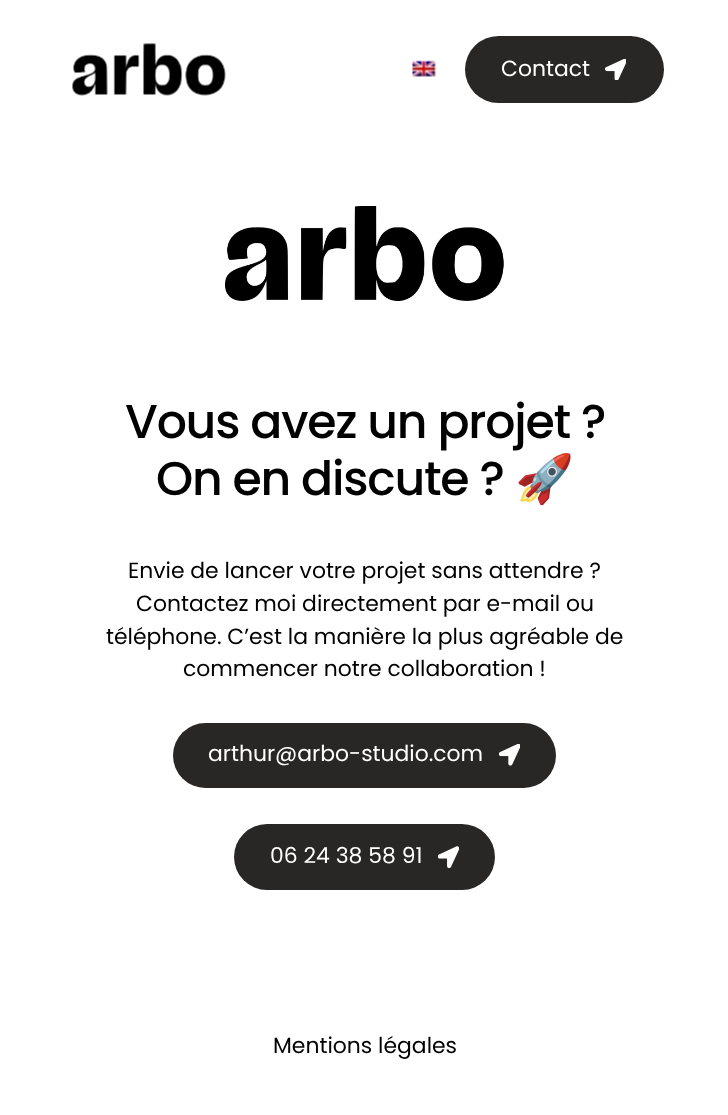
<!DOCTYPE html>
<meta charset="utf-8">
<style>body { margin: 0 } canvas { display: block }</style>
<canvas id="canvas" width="728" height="1115"></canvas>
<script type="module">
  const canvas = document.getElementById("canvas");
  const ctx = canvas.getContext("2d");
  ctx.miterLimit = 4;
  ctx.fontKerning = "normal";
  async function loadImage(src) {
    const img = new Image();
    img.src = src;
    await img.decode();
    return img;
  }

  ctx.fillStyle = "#ffffff";
  ctx.fillRect(0, 0, 728, 1115);
  ctx.drawImage(await loadImage("img1.png"), 72, 43, 154, 53);
  ctx.drawImage(await loadImage("img2.png"), 412, 60, 24, 17);
  ctx.fillStyle = "#292626";
  ctx.beginPath();
  ctx.roundRect(465, 36, 199, 67, 33.5);
  ctx.fill();
  ctx.font = "21.9px Poppins";
  ctx.fillStyle = "#ffffff";
  ctx.fillText("Contact", 501, 76);
  ctx.drawImage(await loadImage("img3.png"), 605, 59, 21, 21);
  ctx.drawImage(await loadImage("img4.png"), 225, 206, 279, 95);
  ctx.letterSpacing = "-1.25px";
  ctx.font = "500 47.4px Poppins";
  ctx.fillStyle = "#000000";
  ctx.fillText("Vous avez un projet ?", 125, 438);
  ctx.fillText("On en discute ?", 156, 495);
  ctx.font = "47.4px Noto Color Emoji";
  ctx.fillText("🚀", 515, 495);
  ctx.letterSpacing = "0px";
  ctx.font = "21.9px Poppins";
  ctx.fillText("Envie de lancer votre projet sans attendre ?", 128, 578);
  ctx.fillText("Contactez moi directement par e-mail ou", 136, 611);
  ctx.fillText("téléphone. C’est la manière la plus agréable de", 106, 644);
  ctx.fillText("commencer notre collaboration !", 183, 676);
  ctx.fillStyle = "#292626";
  ctx.beginPath();
  ctx.roundRect(173, 723, 383, 65, 32.5);
  ctx.fill();
  ctx.fillStyle = "#ffffff";
  ctx.fillText("arthur@arbo-studio.com", 208, 761);
  ctx.drawImage(await loadImage("img5.png"), 499, 744, 21, 22);
  ctx.fillStyle = "#292626";
  ctx.beginPath();
  ctx.roundRect(234, 824, 261, 66, 33);
  ctx.fill();
  ctx.fillStyle = "#ffffff";
  ctx.fillText("06 24 38 58 91", 270, 863);
  ctx.drawImage(await loadImage("img6.png"), 438, 846, 21, 22);
  ctx.fillStyle = "#000000";
  ctx.fillText("Mentions légales", 273, 1053);
</script>
